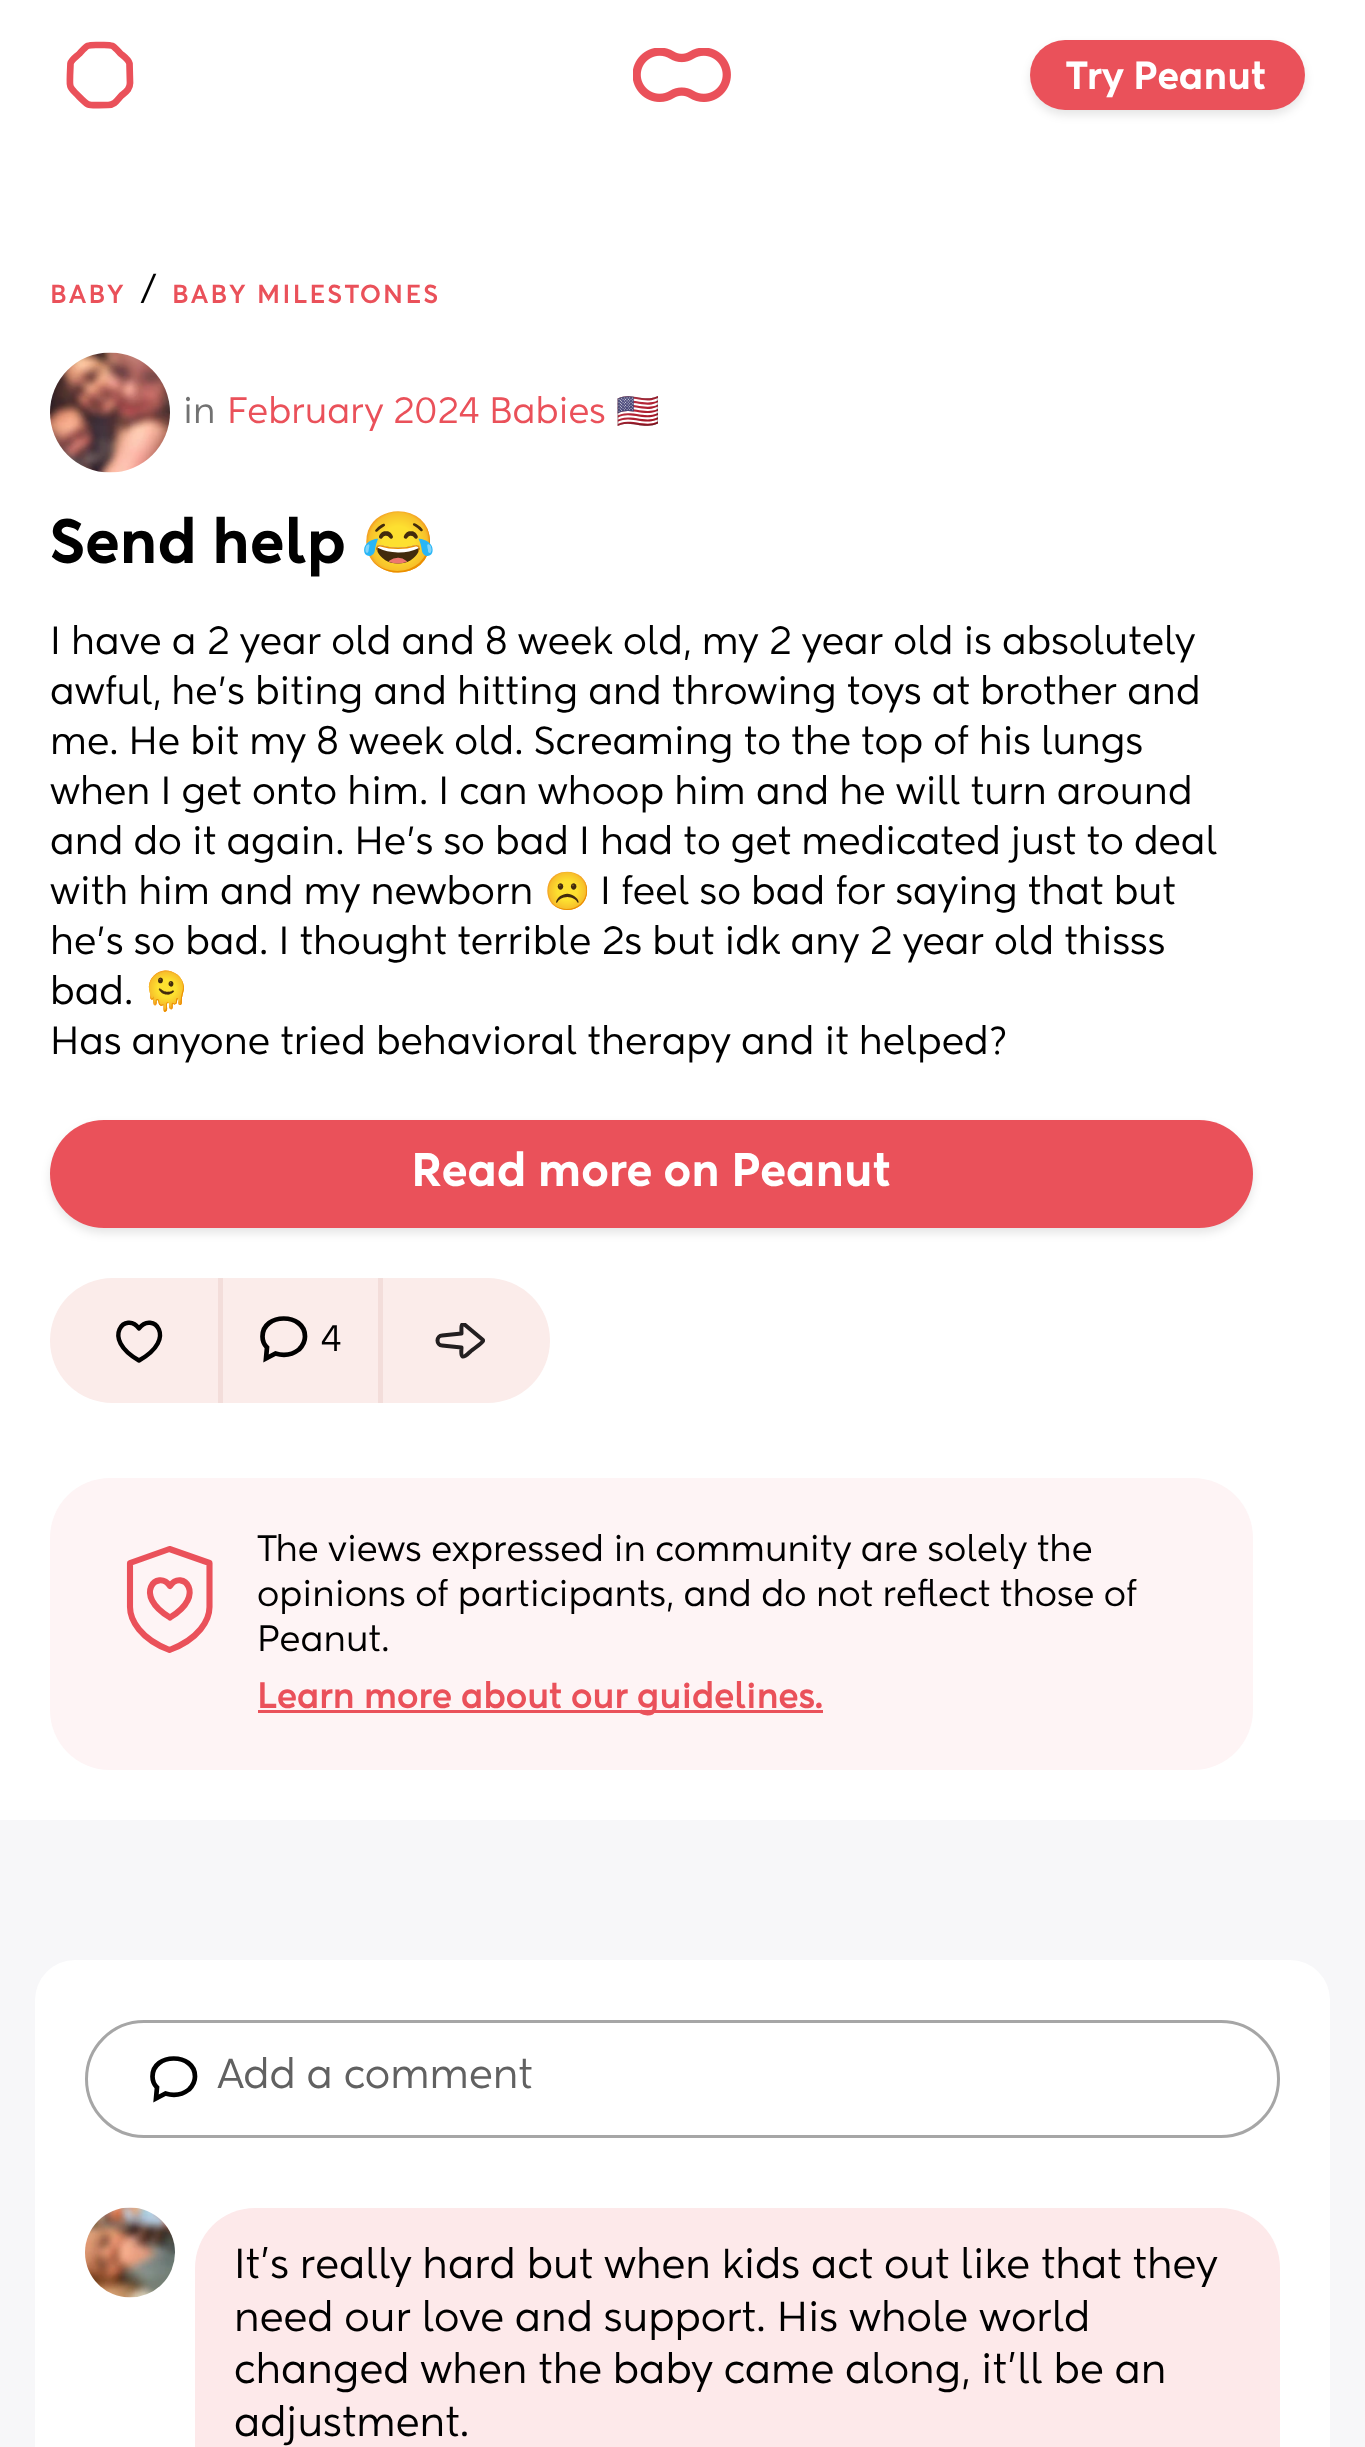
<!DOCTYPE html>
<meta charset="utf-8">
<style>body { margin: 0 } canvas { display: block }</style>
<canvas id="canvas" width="1365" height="2447"></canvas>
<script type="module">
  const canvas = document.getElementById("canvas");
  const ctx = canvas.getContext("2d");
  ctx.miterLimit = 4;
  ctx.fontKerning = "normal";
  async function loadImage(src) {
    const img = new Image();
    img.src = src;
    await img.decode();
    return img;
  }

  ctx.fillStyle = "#ffffff";
  ctx.fillRect(0, 0, 1365, 2447);
  ctx.beginPath();
  ctx.moveTo(108, 105);
  ctx.bezierCurveTo(85, 105, 90.5, 108, 75, 92.5);
  ctx.bezierCurveTo(68.5, 86, 70, 85, 70, 75);
  ctx.lineTo(70.5, 63.5);
  ctx.bezierCurveTo(71.5, 59.5, 76.5, 56.5, 79, 54);
  ctx.bezierCurveTo(88.5, 44, 86.5, 45, 100, 45);
  ctx.bezierCurveTo(113.5, 45, 111.5, 44, 121, 54);
  ctx.bezierCurveTo(124, 56.5, 128.5, 59.5, 129.5, 63.5);
  ctx.lineTo(130, 83);
  ctx.moveTo(130, 83);
  ctx.bezierCurveTo(130, 89.5, 125.5, 92, 121, 96);
  ctx.bezierCurveTo(117, 100.5, 114.5, 105, 108, 105);
  ctx.strokeStyle = "#ea515a";
  ctx.lineWidth = 6.7;
  ctx.lineCap = "round";
  ctx.lineJoin = "round";
  ctx.stroke();
  ctx.drawImage(await loadImage("img1.png"), 633, 48, 98, 54);
  ctx.fillStyle = "rgba(0, 0, 0, 0.1)";
  ctx.filter = "blur(5px)";
  ctx.beginPath();
  ctx.roundRect(1030, 45, 275, 70, 35);
  ctx.fill();
  ctx.filter = "none";
  ctx.fillStyle = "#ea515a";
  ctx.beginPath();
  ctx.roundRect(1030, 40, 275, 70, 35);
  ctx.fill();
  ctx.font = "900 37.5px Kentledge";
  ctx.fillStyle = "#ffffff";
  ctx.fillText("Try Peanut", 1066, 89);
  ctx.letterSpacing = "2.5px";
  ctx.font = "800 25px Kentledge";
  ctx.fillStyle = "#ea515a";
  ctx.fillText("BABY", 50, 303);
  ctx.letterSpacing = "0px";
  ctx.font = "40px Kentledge";
  ctx.fillStyle = "#000000";
  ctx.fillText("/", 138, 303);
  ctx.letterSpacing = "2.5px";
  ctx.font = "800 25px Kentledge";
  ctx.fillStyle = "#ea515a";
  ctx.fillText("BABY MILESTONES", 172, 303);
  ctx.drawImage(await loadImage("img2.png"), 50, 352, 120, 121);
  ctx.letterSpacing = "0px";
  ctx.font = "35px Kentledge";
  ctx.fillStyle = "#727272";
  ctx.fillText("in", 183, 423);
  ctx.fillStyle = "#ea515a";
  ctx.fillText("February 2024 Babies", 227, 423);
  ctx.font = "35px Noto Color Emoji";
  ctx.fillText("🇺🇸", 616, 423);
  ctx.font = "900 60px Kentledge";
  ctx.fillStyle = "#000000";
  ctx.fillText("Send help", 50, 563);
  ctx.font = "bold 60px Noto Color Emoji";
  ctx.fillText("😂", 361, 563);
  ctx.font = "37.5px Kentledge";
  ctx.fillText("I have a 2 year old and 8 week old, my 2 year old is absolutely", 50, 654);
  ctx.fillText("awful, he's biting and hitting and throwing toys at brother and", 50, 704);
  ctx.fillText("me. He bit my 8 week old. Screaming to the top of his lungs", 50, 754);
  ctx.fillText("when I get onto him. I can whoop him and he will turn around", 50, 804);
  ctx.fillText("and do it again. He's so bad I had to get medicated just to deal", 50, 854);
  ctx.fillText("with him and my newborn", 50, 904);
  ctx.font = "37.5px Noto Color Emoji";
  ctx.fillText("☹️", 544, 904);
  ctx.font = "37.5px Kentledge";
  ctx.fillText("I feel so bad for saying that but", 600, 904);
  ctx.fillText("he's so bad. I thought terrible 2s but idk any 2 year old thisss", 50, 954);
  ctx.fillText("bad.", 50, 1004);
  ctx.font = "37.5px Noto Color Emoji";
  ctx.fillText("🫠", 143, 1004);
  ctx.font = "37.5px Kentledge";
  ctx.fillText("Has anyone tried behavioral therapy and it helped?", 50, 1054);
  ctx.fillStyle = "rgba(0, 0, 0, 0.1)";
  ctx.filter = "blur(5px)";
  ctx.beginPath();
  ctx.roundRect(50, 1125, 1203, 108, 54);
  ctx.fill();
  ctx.filter = "none";
  ctx.fillStyle = "#ea515a";
  ctx.beginPath();
  ctx.roundRect(50, 1120, 1203, 108, 54);
  ctx.fill();
  ctx.font = "900 45px Kentledge";
  ctx.fillStyle = "#ffffff";
  ctx.fillText("Read more on Peanut", 411, 1186);
  ctx.fillStyle = "#fbecea";
  ctx.beginPath();
  ctx.roundRect(50, 1278, 500, 125, 62.5);
  ctx.fill();
  ctx.fillStyle = "#f3ddda";
  ctx.fillRect(218, 1278, 5, 125);
  ctx.beginPath();
  ctx.moveTo(139, 1360.5);
  ctx.bezierCurveTo(179, 1338, 152, 1310.5, 139, 1328.5);
  ctx.bezierCurveTo(126.5, 1310.5, 99.5, 1338, 139, 1360.5);
  ctx.strokeStyle = "#000000";
  ctx.lineWidth = 4.4;
  ctx.stroke();
  ctx.fillRect(378, 1278, 5, 125);
  ctx.beginPath();
  ctx.moveTo(262.5, 1336.5);
  ctx.bezierCurveTo(262.5, 1340.5, 264, 1344.5, 267, 1347.5);
  ctx.lineTo(266, 1358.5);
  ctx.lineTo(275.5, 1353.5);
  ctx.bezierCurveTo(283.5, 1356, 292.5, 1354.5, 299, 1349.5);
  ctx.bezierCurveTo(302.5, 1346, 305, 1341.5, 305, 1336.5);
  ctx.bezierCurveTo(305, 1312.5, 262.5, 1312.5, 262.5, 1336.5);
  ctx.closePath();
  ctx.lineWidth = 4.7;
  ctx.lineCap = "butt";
  ctx.lineJoin = "miter";
  ctx.stroke();
  ctx.font = "35px Kentledge";
  ctx.fillStyle = "#000000";
  ctx.fillText("4", 320, 1351);
  ctx.save();
  ctx.beginPath();
  ctx.rect(435, 1323, 50, 37);
  ctx.clip();
  ctx.beginPath();
  ctx.moveTo(442, 1335.5);
  ctx.lineTo(461.5, 1333.5);
  ctx.bezierCurveTo(461.5, 1329, 460.5, 1322.5, 464.5, 1324.5);
  ctx.lineTo(483, 1340);
  ctx.lineTo(483, 1341);
  ctx.bezierCurveTo(482.5, 1343, 472.5, 1349.5, 470.5, 1351.5);
  ctx.bezierCurveTo(469.5, 1352, 465, 1357.5, 462.5, 1356.5);
  ctx.bezierCurveTo(460.5, 1355, 461.5, 1349.5, 461.5, 1347.5);
  ctx.lineTo(442, 1345.5);
  ctx.bezierCurveTo(439.5, 1345.5, 437.5, 1343, 437.5, 1340.5);
  ctx.bezierCurveTo(437.5, 1338, 439.5, 1335.5, 442, 1335.5);
  ctx.strokeStyle = "#231f20";
  ctx.lineWidth = 4;
  ctx.lineCap = "round";
  ctx.lineJoin = "round";
  ctx.stroke();
  ctx.restore();
  ctx.fillStyle = "#fef4f5";
  ctx.beginPath();
  ctx.roundRect(50, 1478, 1203, 292, 60);
  ctx.fill();
  ctx.beginPath();
  ctx.moveTo(130, 1563);
  ctx.lineTo(130, 1607);
  ctx.bezierCurveTo(130, 1620, 140.5, 1639, 169.5, 1650);
  ctx.bezierCurveTo(199, 1639, 209.5, 1620, 209.5, 1607);
  ctx.lineTo(209.5, 1563);
  ctx.lineTo(169.5, 1549);
  ctx.closePath();
  ctx.strokeStyle = "#ea515a";
  ctx.lineWidth = 6.1;
  ctx.lineCap = "round";
  ctx.lineJoin = "round";
  ctx.stroke();
  ctx.beginPath();
  ctx.moveTo(170, 1617.5);
  ctx.bezierCurveTo(207.5, 1595, 182, 1568.5, 170, 1586);
  ctx.bezierCurveTo(157.5, 1568.5, 132, 1595, 170, 1617.5);
  ctx.stroke();
  ctx.fillStyle = "#000000";
  ctx.fillText("The views expressed in community are solely the", 257, 1561);
  ctx.fillText("opinions of participants, and do not reflect those of", 257, 1606);
  ctx.fillText("Peanut.", 257, 1651);
  ctx.fillStyle = "#ea515a";
  ctx.fillRect(258, 1710, 565, 3);
  ctx.font = "800 35px Kentledge";
  ctx.fillText("Learn more about our guidelines.", 257, 1708);
  ctx.fillStyle = "#f7f7f9";
  ctx.fillRect(0, 1820, 1365, 627);
  ctx.fillStyle = "#ffffff";
  ctx.beginPath();
  ctx.roundRect(35, 1960, 1295, 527, 40);
  ctx.fill();
  ctx.beginPath();
  ctx.roundRect(86.5, 2021.5, 1192, 115, 57.5);
  ctx.strokeStyle = "#a6a6a6";
  ctx.lineWidth = 3;
  ctx.lineJoin = "miter";
  ctx.stroke();
  ctx.beginPath();
  ctx.moveTo(152.5, 2076.5);
  ctx.bezierCurveTo(152.5, 2080.5, 154, 2084.5, 157, 2087.5);
  ctx.lineTo(156, 2098.5);
  ctx.lineTo(165.5, 2093.5);
  ctx.bezierCurveTo(173.5, 2096, 182.5, 2094.5, 189, 2089.5);
  ctx.bezierCurveTo(192.5, 2086, 195, 2081.5, 195, 2076.5);
  ctx.bezierCurveTo(195, 2052.5, 152.5, 2052.5, 152.5, 2076.5);
  ctx.closePath();
  ctx.strokeStyle = "#000000";
  ctx.lineWidth = 4.7;
  ctx.lineCap = "butt";
  ctx.stroke();
  ctx.font = "40px Kentledge";
  ctx.fillStyle = "#616161";
  ctx.fillText("Add a comment", 217, 2088);
  ctx.drawImage(await loadImage("img3.png"), 85, 2207, 90, 91);
  ctx.fillStyle = "#fde9ea";
  ctx.beginPath();
  ctx.roundRect(195, 2208, 1085, 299, 60);
  ctx.fill();
  ctx.fillStyle = "#000000";
  ctx.fillText("It’s really hard but when kids act out like that they", 234, 2278);
  ctx.fillText("need our love and support. His whole world", 234, 2331);
  ctx.fillText("changed when the baby came along, it’ll be an", 234, 2383);
  ctx.fillText("adjustment.", 234, 2436);
</script>
